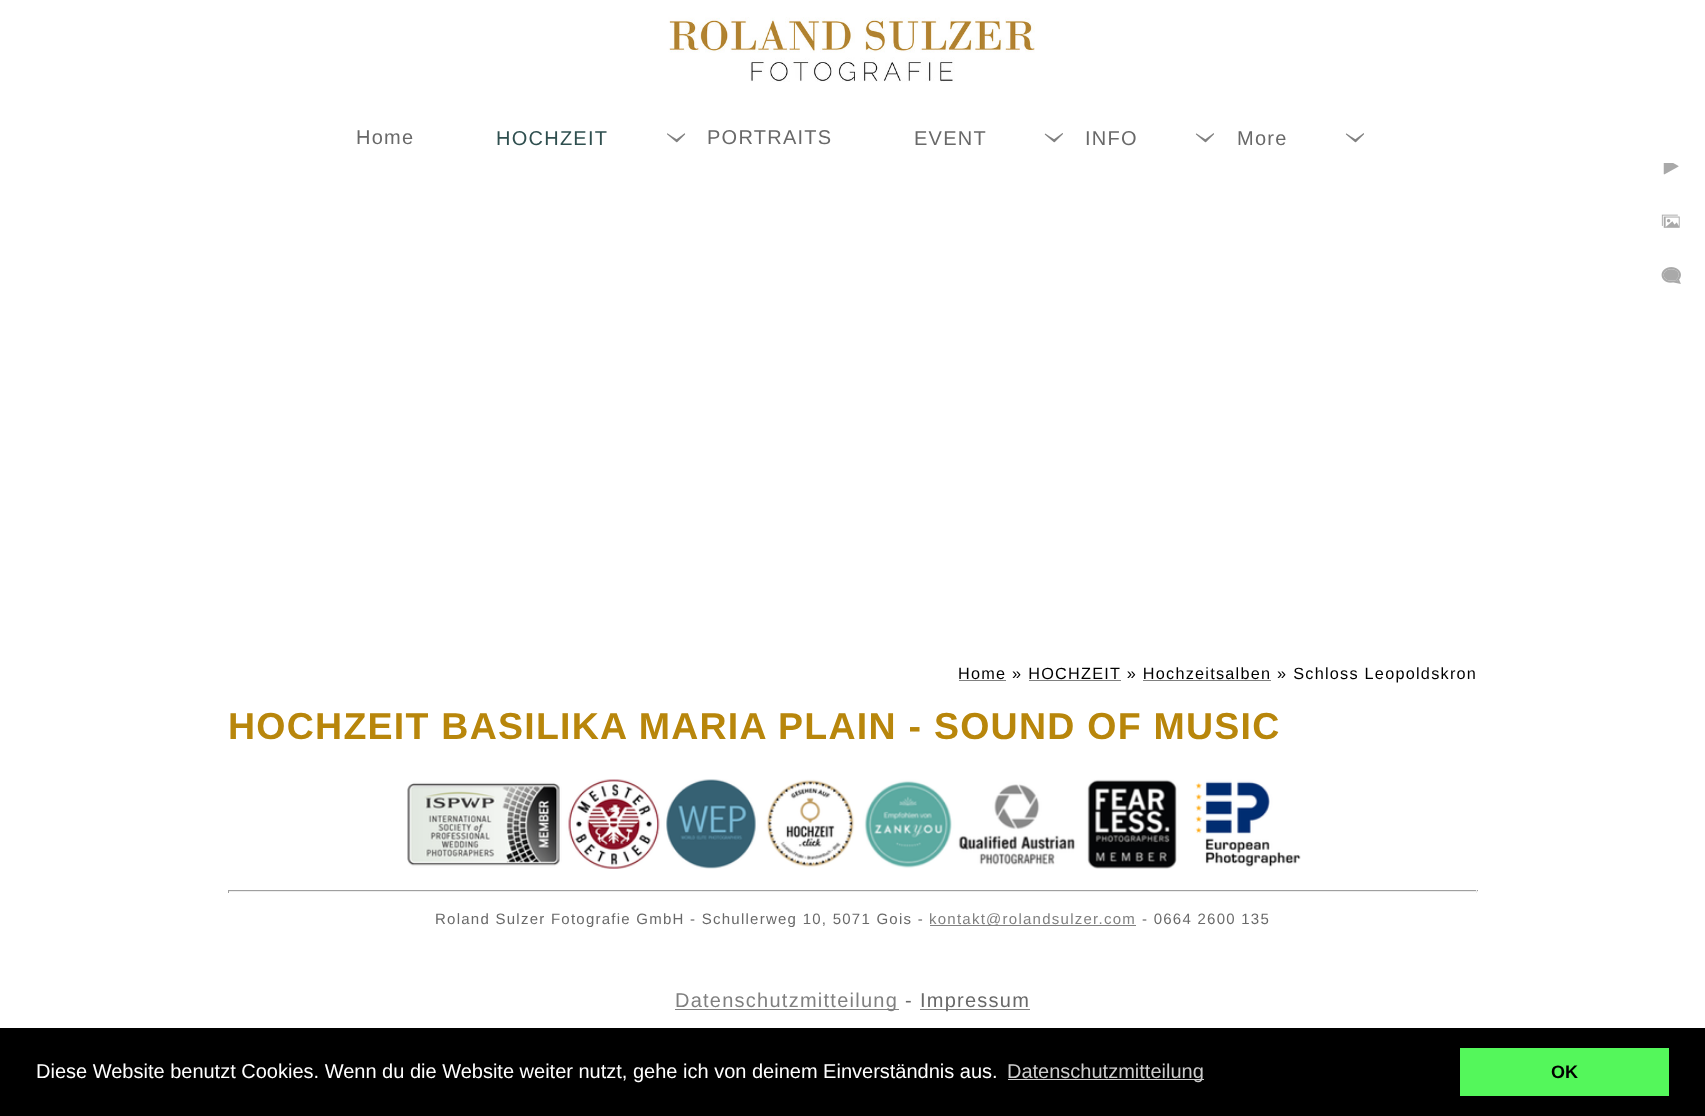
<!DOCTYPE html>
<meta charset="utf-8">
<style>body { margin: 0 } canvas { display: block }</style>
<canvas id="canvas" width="1705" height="1116"></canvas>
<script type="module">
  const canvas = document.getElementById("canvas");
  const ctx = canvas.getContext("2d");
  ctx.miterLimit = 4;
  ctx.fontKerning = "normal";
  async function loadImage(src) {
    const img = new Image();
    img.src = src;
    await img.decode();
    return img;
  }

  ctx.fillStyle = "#ffffff";
  ctx.fillRect(0, 0, 1705, 1116);
  ctx.drawImage(await loadImage("img1.png"), 668, 17, 367, 65);
  ctx.letterSpacing = "1.25px";
  ctx.font = "20px Liberation Sans";
  ctx.fillStyle = "#696969";
  ctx.fillText("Home", 356, 144);
  ctx.fillStyle = "#2f4f4f";
  ctx.fillText("HOCHZEIT", 496, 145);
  ctx.drawImage(await loadImage("img2.png"), 667, 133, 19, 10);
  ctx.fillStyle = "#696969";
  ctx.fillText("PORTRAITS", 707, 144);
  ctx.fillText("EVENT", 914, 145);
  ctx.drawImage(await loadImage("img3.png"), 1044, 133, 19, 10);
  ctx.fillText("INFO", 1085, 145);
  ctx.drawImage(await loadImage("img4.png"), 1195, 133, 19, 10);
  ctx.fillText("More", 1237, 145);
  ctx.drawImage(await loadImage("img4.png"), 1345, 133, 19, 10);
  ctx.drawImage(await loadImage("img5.png"), 1663, 163, 16, 12);
  ctx.drawImage(await loadImage("img6.png"), 1661, 214, 19, 14);
  ctx.drawImage(await loadImage("img7.png"), 1661, 267, 20, 17);
  ctx.fillStyle = "#808080";
  ctx.fillRect(959, 680, 47, 1);
  ctx.font = "16.25px Liberation Sans";
  ctx.fillStyle = "#000000";
  ctx.fillText("Home » HOCHZEIT » Hochzeitsalben » Schloss Leopoldskron", 958, 679);
  ctx.fillStyle = "#808080";
  ctx.fillRect(1029, 680, 92, 1);
  ctx.fillRect(1143, 680, 128, 1);
  ctx.font = "bold 37.5px Liberation Sans";
  ctx.fillStyle = "#b8860b";
  ctx.fillText("HOCHZEIT BASILIKA MARIA PLAIN - SOUND OF MUSIC", 228, 739);
  ctx.drawImage(await loadImage("img8.png"), 407, 779, 894, 90);
  ctx.fillStyle = "#9f9f9f";
  ctx.fillRect(228, 890, 1250, 1);
  ctx.fillStyle = "#eeeeee";
  ctx.fillRect(1476, 890, 1, 3);
  ctx.fillRect(228, 891, 1250, 1);
  ctx.fillStyle = "#9f9f9f";
  ctx.fillRect(228, 890, 1, 3);
  ctx.font = "15px Liberation Sans";
  ctx.fillStyle = "#696969";
  ctx.fillText("Roland Sulzer Fotografie GmbH - Schullerweg 10, 5071 Gois -", 435, 924);
  ctx.fillStyle = "#808080";
  ctx.fillRect(930, 925, 206, 1);
  ctx.fillText("kontakt@rolandsulzer.com", 929, 924);
  ctx.fillStyle = "#696969";
  ctx.fillText("- 0664 2600 135", 1142, 924);
  ctx.fillStyle = "#808080";
  ctx.fillRect(675, 1009, 224, 1);
  ctx.font = "20px Liberation Sans";
  ctx.fillText("Datenschutzmitteilung", 675, 1007);
  ctx.fillStyle = "#696969";
  ctx.fillText("-", 905, 1007);
  ctx.fillStyle = "#808080";
  ctx.fillRect(920, 1009, 110, 1);
  ctx.fillStyle = "#696969";
  ctx.fillText("Impressum", 920, 1007);
  ctx.fillStyle = "#000000";
  ctx.fillRect(0, 1028, 1705, 88);
  ctx.letterSpacing = "0px";
  ctx.fillStyle = "#ffffff";
  ctx.fillText("Diese Website benutzt Cookies. Wenn du die Website weiter nutzt, gehe ich von deinem Einverständnis aus.", 36, 1078);
  ctx.fillStyle = "#cccccc";
  ctx.fillRect(1008, 1079, 196, 1);
  ctx.fillText("Datenschutzmitteilung", 1007, 1078);
  ctx.fillStyle = "#54f75b";
  ctx.fillRect(1460, 1048, 209, 48);
  ctx.font = "bold 18px Liberation Sans";
  ctx.fillStyle = "#000000";
  ctx.fillText("OK", 1551, 1078);
</script>
